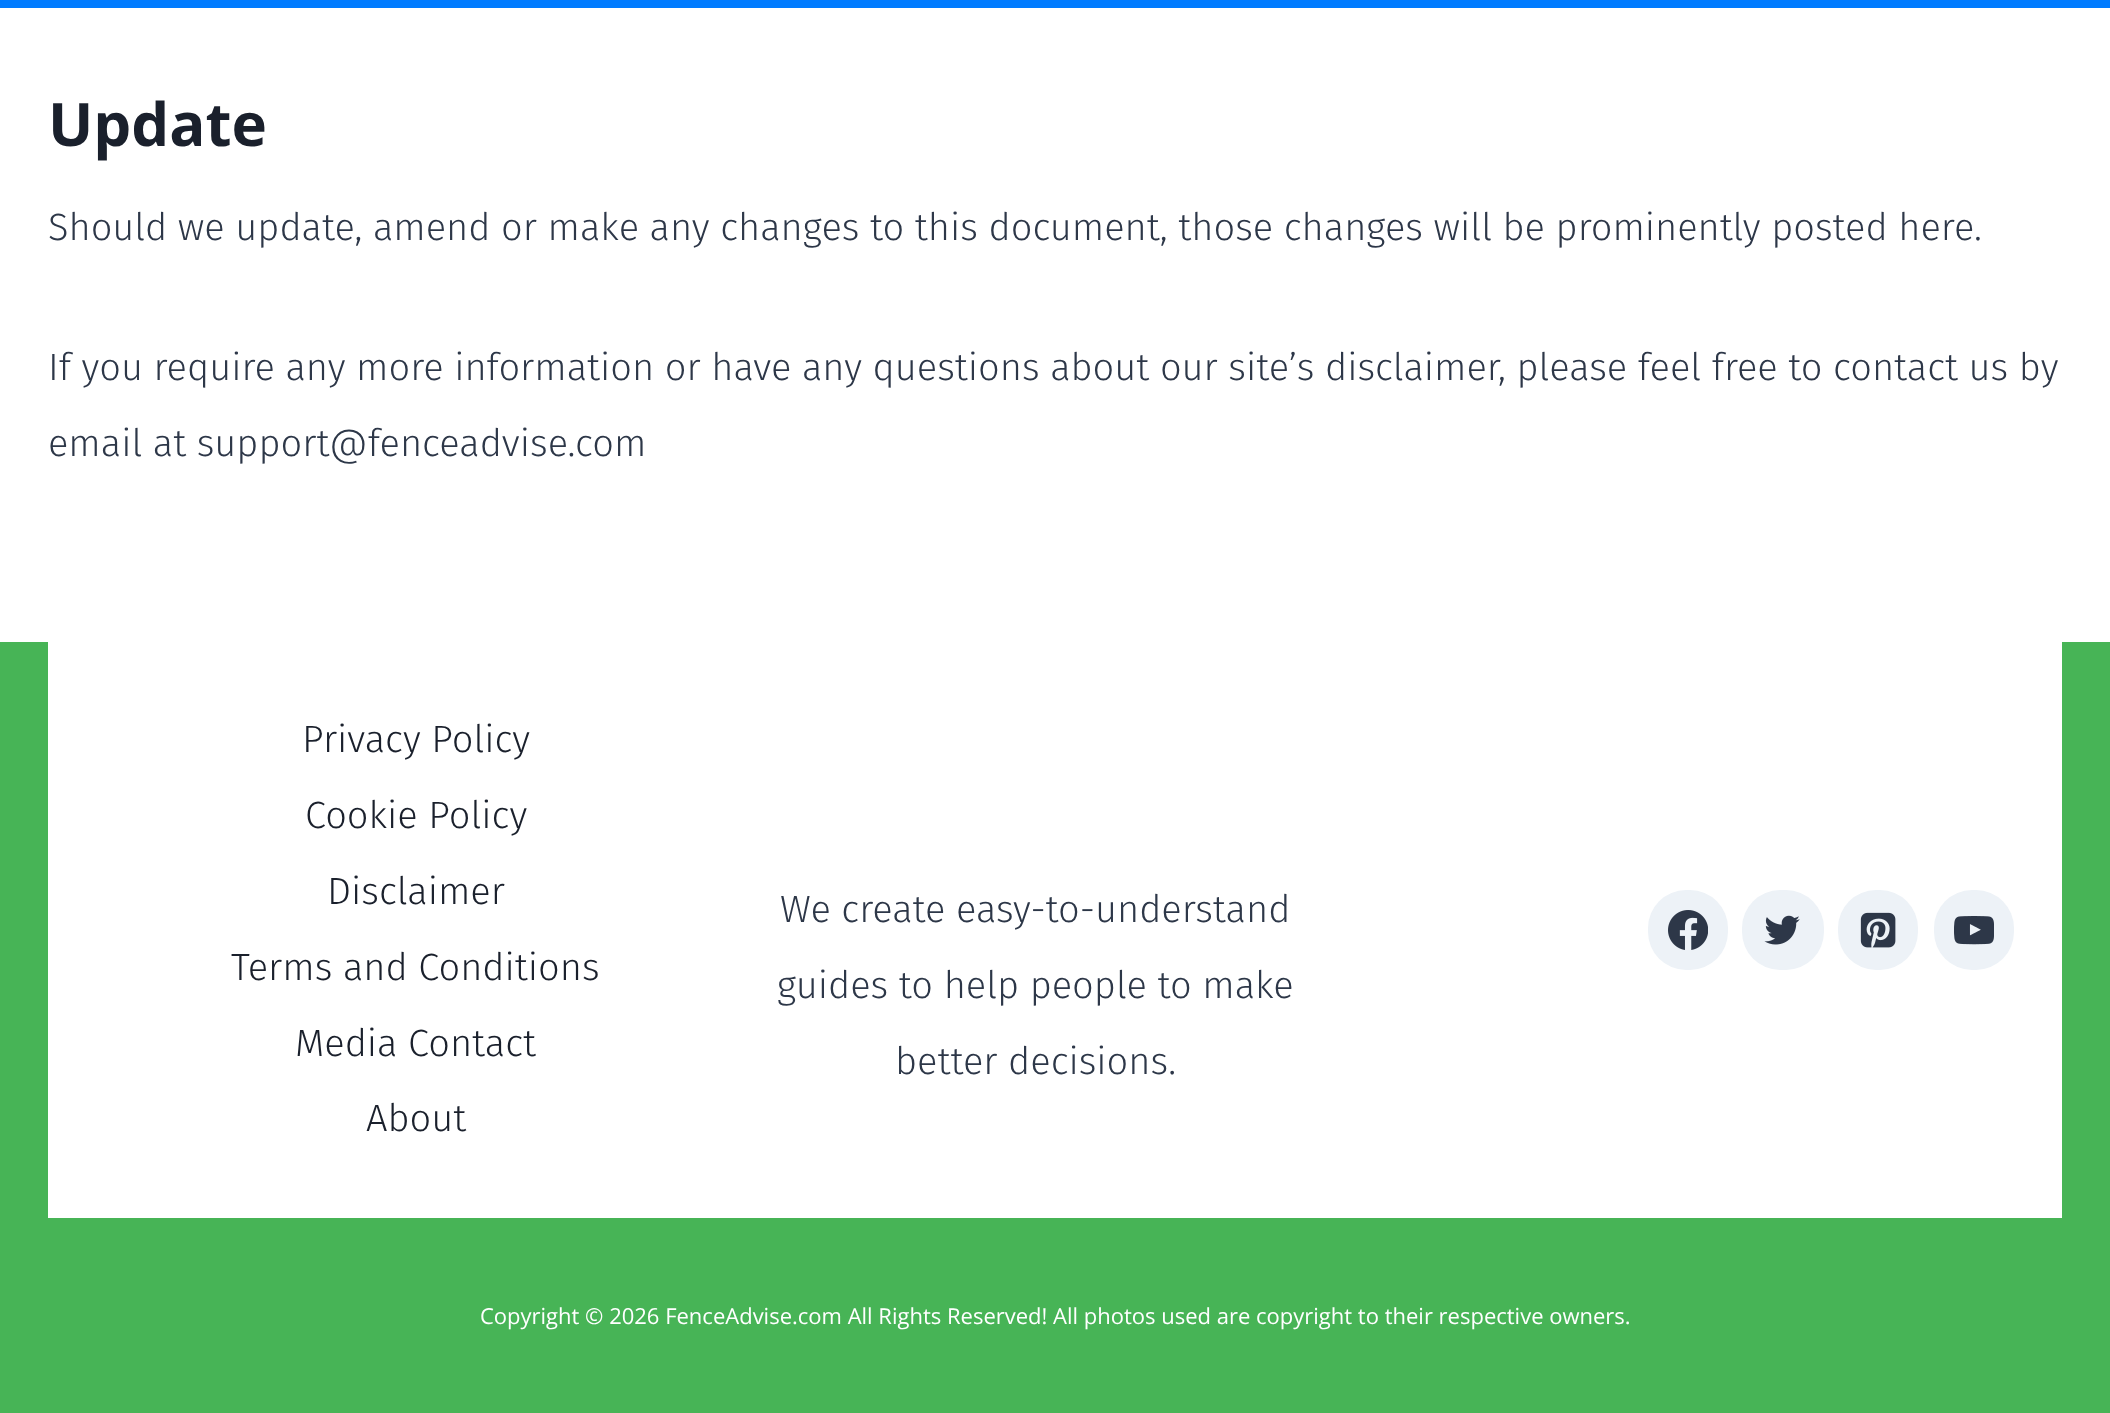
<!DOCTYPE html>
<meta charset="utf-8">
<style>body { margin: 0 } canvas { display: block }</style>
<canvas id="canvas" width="2110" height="1413"></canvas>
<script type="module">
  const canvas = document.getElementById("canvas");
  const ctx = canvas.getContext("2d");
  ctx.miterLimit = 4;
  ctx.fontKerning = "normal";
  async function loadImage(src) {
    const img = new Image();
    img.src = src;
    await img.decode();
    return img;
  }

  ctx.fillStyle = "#ffffff";
  ctx.fillRect(0, 0, 2110, 1413);
  ctx.fillStyle = "#007bff";
  ctx.fillRect(0, 0, 2110, 8);
  ctx.font = "bold 60px Open Sans";
  ctx.fillStyle = "#1a202c";
  ctx.fillText("Update", 48, 146);
  ctx.font = "300 38px Fira Sans";
  ctx.fillStyle = "#2d3748";
  ctx.fillText("Should we update, amend or make any changes to this document, those changes will be prominently posted here.", 48, 240);
  ctx.fillText("If you require any more information or have any questions about our site’s disclaimer, please feel free to contact us by", 48, 380);
  ctx.fillText("email at support@fenceadvise.com", 48, 456);
  ctx.fillStyle = "#47b456";
  ctx.fillRect(0, 642, 2110, 771);
  ctx.fillStyle = "#ffffff";
  ctx.fillRect(48, 642, 2014, 576);
  ctx.fillStyle = "#1a202c";
  ctx.fillText("Privacy Policy", 302, 752);
  ctx.fillText("Cookie Policy", 305, 828);
  ctx.fillText("Disclaimer", 327, 904);
  ctx.fillText("Terms and Conditions", 231, 980);
  ctx.fillText("Media Contact", 295, 1056);
  ctx.fillText("About", 366, 1131);
  ctx.fillStyle = "#2d3748";
  ctx.fillText("We create easy-to-understand", 780, 922);
  ctx.fillText("guides to help people to make", 777, 998);
  ctx.fillText("better decisions.", 895, 1074);
  ctx.fillStyle = "#edf2f7";
  ctx.beginPath();
  ctx.roundRect(1648, 890, 80, 80, 38);
  ctx.fill();
  ctx.drawImage(await loadImage("img1.png"), 1668, 910, 40, 40);
  ctx.beginPath();
  ctx.roundRect(1742, 890, 82, 80, 38);
  ctx.fill();
  ctx.drawImage(await loadImage("img2.png"), 1764, 915, 36, 30);
  ctx.beginPath();
  ctx.roundRect(1838, 890, 80, 80, 38);
  ctx.fill();
  ctx.drawImage(await loadImage("img3.png"), 1860, 912, 36, 36);
  ctx.beginPath();
  ctx.roundRect(1934, 890, 80, 80, 38);
  ctx.fill();
  ctx.drawImage(await loadImage("img4.png"), 1954, 916, 40, 29);
  ctx.font = "22px Open Sans";
  ctx.fillStyle = "#ffffff";
  ctx.fillText("Copyright © 2026 FenceAdvise.com All Rights Reserved! All photos used are copyright to their respective owners.", 480, 1324);
</script>
